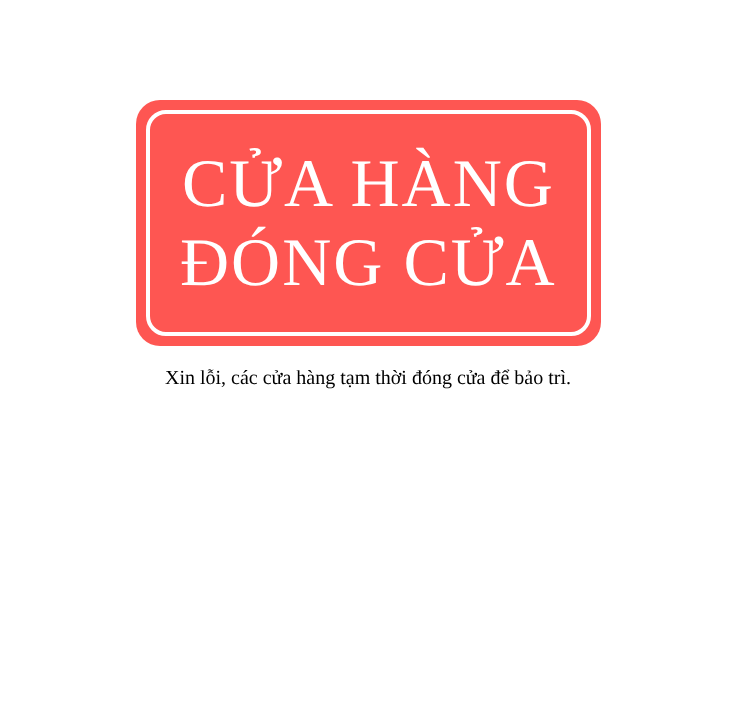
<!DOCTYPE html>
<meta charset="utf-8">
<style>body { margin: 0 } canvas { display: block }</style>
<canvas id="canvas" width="737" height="711"></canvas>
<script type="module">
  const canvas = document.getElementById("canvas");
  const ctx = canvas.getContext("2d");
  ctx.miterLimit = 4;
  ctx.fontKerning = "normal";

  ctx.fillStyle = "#ffffff";
  ctx.fillRect(0, 0, 737, 711);
  ctx.fillStyle = "#fe5652";
  ctx.beginPath();
  ctx.roundRect(136, 100, 465, 246, 24);
  ctx.fill();
  ctx.beginPath();
  ctx.roundRect(148, 112, 441, 222, 18);
  ctx.strokeStyle = "#ffffff";
  ctx.lineWidth = 4;
  ctx.stroke();
  ctx.letterSpacing = "2px";
  ctx.font = "68px Liberation Serif";
  ctx.fillStyle = "#ffffff";
  ctx.fillText("CỬA HÀNG", 182, 206);
  ctx.fillText("ĐÓNG CỬA", 180, 285);
  ctx.letterSpacing = "0px";
  ctx.font = "20px Liberation Serif";
  ctx.fillStyle = "#000000";
  ctx.fillText("Xin lỗi, các cửa hàng tạm thời đóng cửa để bảo trì.", 165, 384);
</script>
